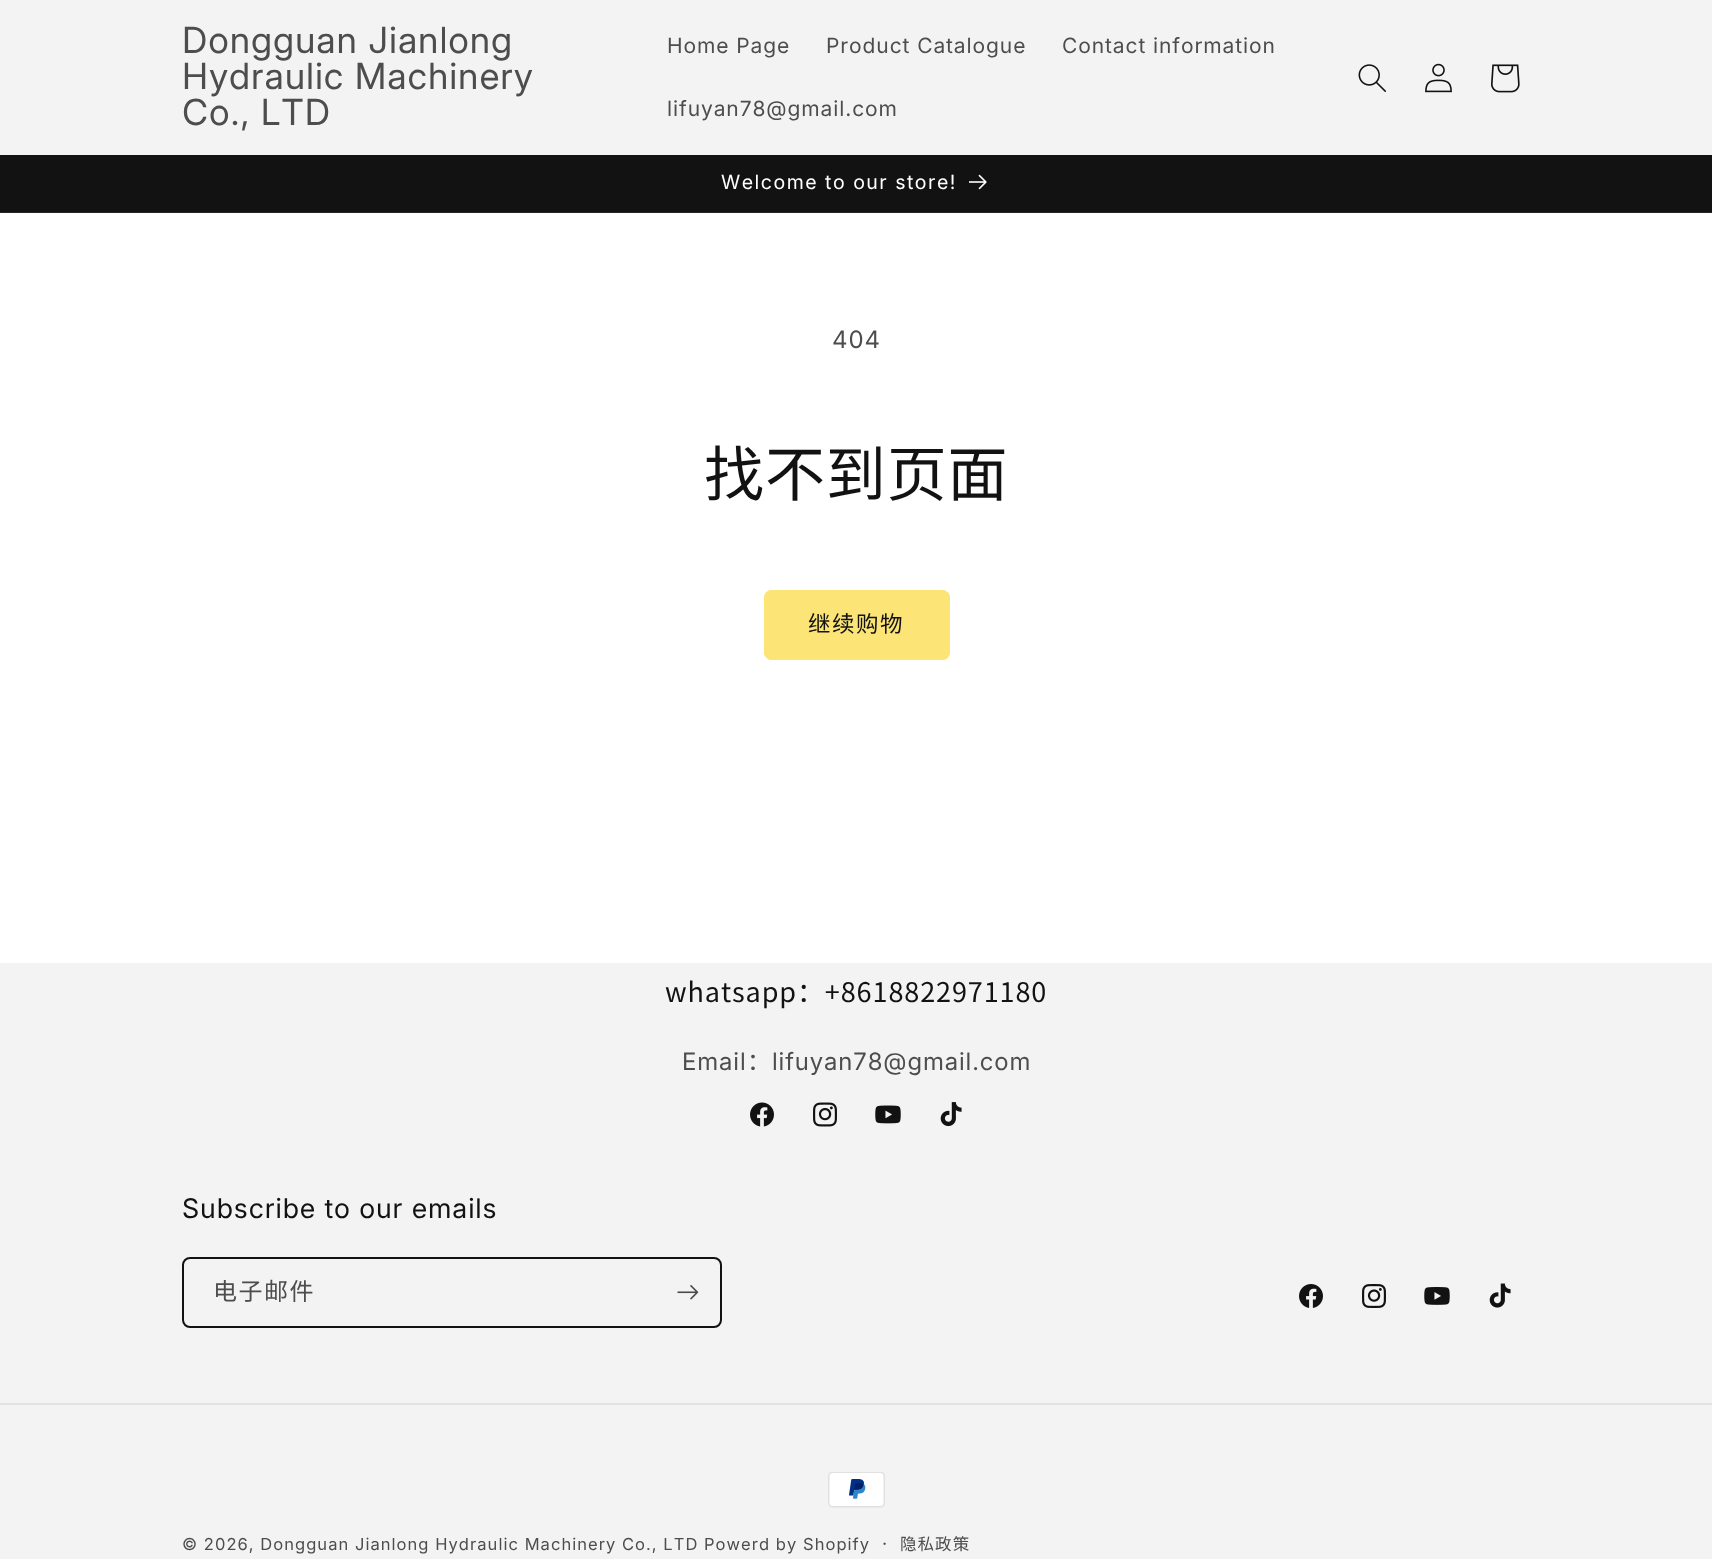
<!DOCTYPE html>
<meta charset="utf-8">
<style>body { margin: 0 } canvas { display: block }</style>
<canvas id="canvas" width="1712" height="1559"></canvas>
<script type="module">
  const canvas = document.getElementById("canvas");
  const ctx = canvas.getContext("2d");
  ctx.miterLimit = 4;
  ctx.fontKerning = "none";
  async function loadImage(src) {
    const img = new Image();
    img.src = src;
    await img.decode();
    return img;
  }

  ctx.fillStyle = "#ffffff";
  ctx.fillRect(0, 0, 1712, 1559);
  ctx.fillStyle = "#f3f3f3";
  ctx.fillRect(0, 0, 1712, 155);
  ctx.letterSpacing = "0.9px";
  ctx.font = "36px 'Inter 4'";
  ctx.fillStyle = "#4d4d4d";
  ctx.fillText("Dongguan Jianlong", 182, 53);
  ctx.fillText("Hydraulic Machinery", 182, 89);
  ctx.fillText("Co., LTD", 182, 125);
  ctx.font = "21px Inter";
  ctx.fillText("Home Page", 667, 53);
  ctx.fillText("Product Catalogue", 826, 53);
  ctx.fillText("Contact information", 1062, 53);
  ctx.fillText("lifuyan78@gmail.com", 667, 116);
  ctx.drawImage(await loadImage("img1.png"), 1358, 64, 28, 28);
  ctx.drawImage(await loadImage("img2.png"), 1425, 63, 27, 30);
  ctx.drawImage(await loadImage("img3.png"), 1491, 64, 29, 29);
  ctx.fillStyle = "#121212";
  ctx.fillRect(0, 155, 1712, 57);
  ctx.fillStyle = "#252525";
  ctx.fillRect(0, 212, 1712, 1);
  ctx.letterSpacing = "1.5px";
  ctx.font = "19.5px Inter";
  ctx.fillStyle = "#ffffff";
  ctx.fillText("Welcome to our store!", 721, 189);
  ctx.drawImage(await loadImage("img4.png"), 969, 174, 18, 16);
  ctx.letterSpacing = "0.9px";
  ctx.font = "24px Inter";
  ctx.fillStyle = "#4d4d4d";
  ctx.fillText("404", 832, 348);
  ctx.font = "60px Noto Sans CJK SC";
  ctx.fillStyle = "#121212";
  ctx.fillText("找不到页面", 704, 496);
  ctx.fillStyle = "#fce477";
  ctx.beginPath();
  ctx.roundRect(764, 590, 186, 70, 8);
  ctx.fill();
  ctx.beginPath();
  ctx.roundRect(765, 591, 184, 68, 7);
  ctx.strokeStyle = "#fce477";
  ctx.lineWidth = 2;
  ctx.stroke();
  ctx.letterSpacing = "1.5px";
  ctx.font = "22.5px Noto Sans CJK SC";
  ctx.fillStyle = "#121212";
  ctx.fillText("继续购物", 808, 632);
  ctx.fillStyle = "#f3f3f3";
  ctx.fillRect(0, 963, 1712, 596);
  ctx.letterSpacing = "0.9px";
  ctx.font = "27px Noto Sans CJK SC";
  ctx.fillStyle = "#121212";
  ctx.fillText("whatsapp：+8618822971180", 665, 1002);
  ctx.font = "24px 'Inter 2'";
  ctx.fillStyle = "#4d4d4d";
  ctx.fillText("Email", 682, 1070);
  ctx.font = "24px Noto Sans CJK SC";
  ctx.fillText("：", 747, 1070);
  ctx.font = "24px 'Inter 2'";
  ctx.fillText("lifuyan78@gmail.com", 772, 1070);
  ctx.drawImage(await loadImage("img5.png"), 750, 1102, 24, 25);
  ctx.drawImage(await loadImage("img6.png"), 813, 1102, 24, 25);
  ctx.drawImage(await loadImage("img7.png"), 875, 1105, 26, 19);
  ctx.drawImage(await loadImage("img8.png"), 940, 1102, 22, 25);
  ctx.font = "27px 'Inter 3'";
  ctx.fillStyle = "#121212";
  ctx.fillText("Subscribe to our emails", 182, 1218);
  ctx.beginPath();
  ctx.roundRect(183, 1258, 538, 69, 7);
  ctx.strokeStyle = "#121212";
  ctx.stroke();
  ctx.letterSpacing = "1.5px";
  ctx.font = "24px Noto Sans CJK SC";
  ctx.fillStyle = "#4d4d4d";
  ctx.fillText("电子邮件", 213, 1300);
  ctx.drawImage(await loadImage("img9.png"), 677, 1285, 22, 15);
  ctx.drawImage(await loadImage("img10.png"), 1299, 1284, 24, 24);
  ctx.drawImage(await loadImage("img11.png"), 1362, 1284, 24, 24);
  ctx.drawImage(await loadImage("img12.png"), 1424, 1287, 26, 18);
  ctx.drawImage(await loadImage("img13.png"), 1489, 1283, 22, 25);
  ctx.fillStyle = "#e1e1e1";
  ctx.fillRect(0, 1403, 1712, 2);
  ctx.drawImage(await loadImage("img14.png"), 828, 1472, 57, 36);
  ctx.letterSpacing = "1.05px";
  ctx.font = "16.5px Inter";
  ctx.fillStyle = "#4d4d4d";
  ctx.fillText("© 2026, Dongguan Jianlong Hydraulic Machinery Co., LTD", 182, 1550);
  ctx.fillText("Powerd by Shopify", 704, 1550);
  ctx.font = "18px Inter";
  ctx.fillText("·", 882, 1550);
  ctx.font = "16.5px Noto Sans CJK SC";
  ctx.fillText("隐私政策", 900, 1550);
</script>
